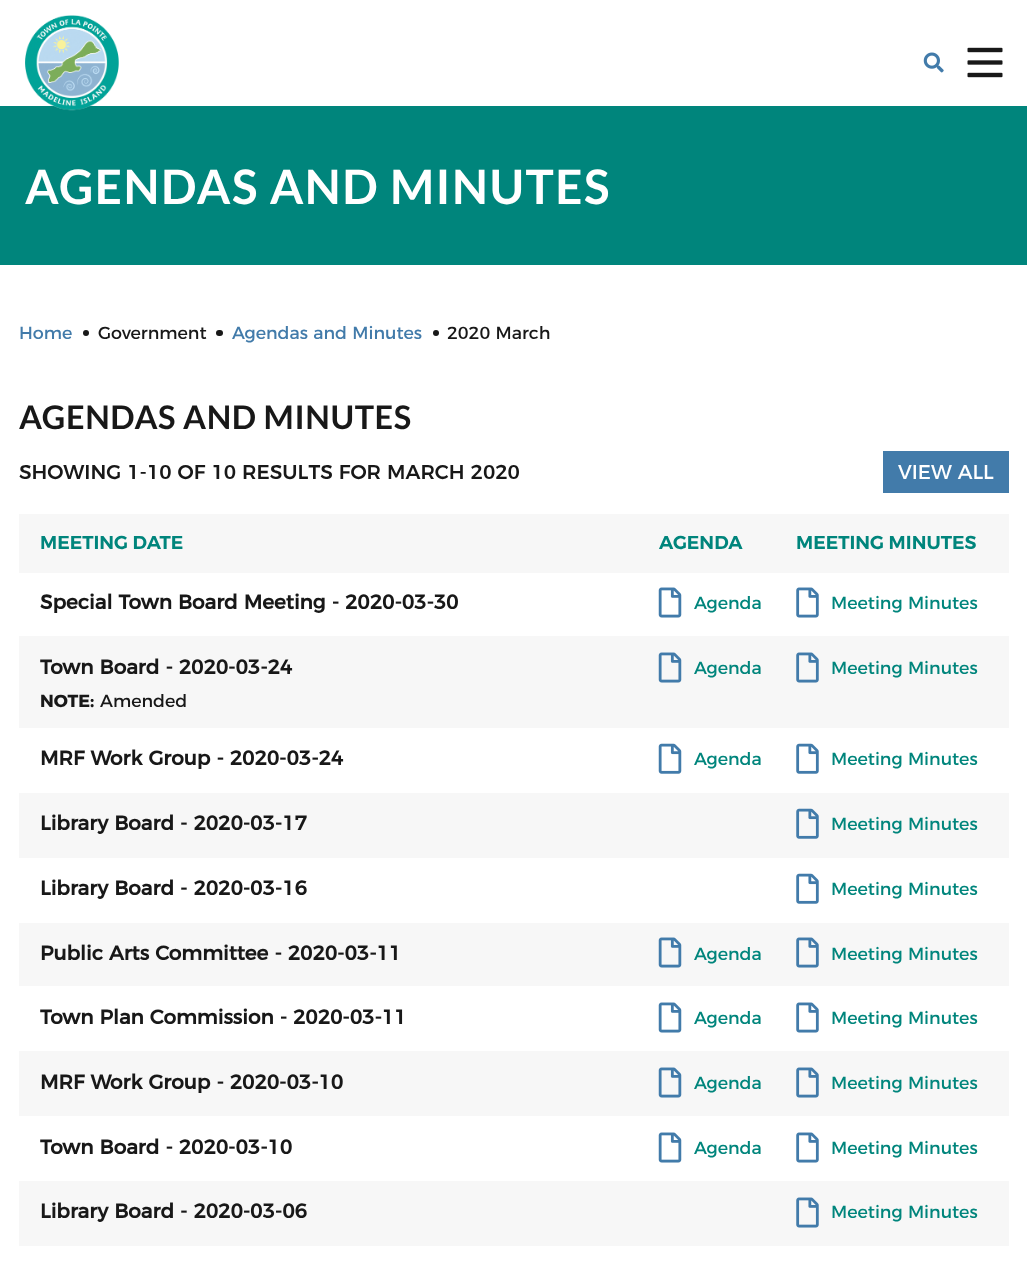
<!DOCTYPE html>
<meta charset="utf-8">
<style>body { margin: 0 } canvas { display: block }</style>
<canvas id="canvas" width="1027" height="1267"></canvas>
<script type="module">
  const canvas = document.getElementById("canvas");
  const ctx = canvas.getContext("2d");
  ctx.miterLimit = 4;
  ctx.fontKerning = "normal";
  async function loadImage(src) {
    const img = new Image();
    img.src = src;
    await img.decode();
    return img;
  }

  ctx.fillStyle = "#ffffff";
  ctx.fillRect(0, 0, 1027, 1267);
  ctx.fillStyle = "#00857c";
  ctx.fillRect(0, 106, 1027, 159);
  ctx.drawImage(await loadImage("img1.png"), 25, 15, 94, 96);
  ctx.drawImage(await loadImage("img2.png"), 923, 52, 21, 21);
  ctx.drawImage(await loadImage("img3.png"), 967, 47, 36, 31);
  ctx.letterSpacing = "1.5px";
  ctx.font = "bold 47.5px Lato";
  ctx.fillStyle = "#ffffff";
  ctx.fillText("AGENDAS AND MINUTES", 25, 204);
  ctx.letterSpacing = "0px";
  ctx.font = "17.5px Montserrat";
  ctx.fillStyle = "#427baa";
  ctx.fillText("Home", 19, 339);
  ctx.fillStyle = "#181818";
  ctx.beginPath();
  ctx.arc(86, 333, 3, 0, Math.PI * 2);
  ctx.fill();
  ctx.fillText("Government", 98, 339);
  ctx.beginPath();
  ctx.roundRect(216, 330, 7, 6, 3);
  ctx.fill();
  ctx.fillStyle = "#427baa";
  ctx.fillText("Agendas and Minutes", 232, 339);
  ctx.fillStyle = "#181818";
  ctx.beginPath();
  ctx.arc(436, 333, 3, 0, Math.PI * 2);
  ctx.fill();
  ctx.fillText("2020 March", 447, 339);
  ctx.letterSpacing = "0.6px";
  ctx.font = "bold 32.5px Lato";
  ctx.fillText("AGENDAS AND MINUTES", 19, 429);
  ctx.letterSpacing = "0px";
  ctx.font = "500 20px Montserrat";
  ctx.fillText("SHOWING 1-10 OF 10 RESULTS FOR MARCH 2020", 19, 479);
  ctx.fillStyle = "#427baa";
  ctx.fillRect(883, 451, 126, 42);
  ctx.font = "20px Montserrat";
  ctx.fillStyle = "#ffffff";
  ctx.fillText("VIEW ALL", 898, 479);
  ctx.fillStyle = "#f7f7f7";
  ctx.fillRect(19, 514, 990, 59);
  ctx.font = "600 18.75px Montserrat";
  ctx.fillStyle = "#00857c";
  ctx.fillText("MEETING DATE", 40, 549);
  ctx.fillText("AGENDA", 659, 549);
  ctx.fillText("MEETING MINUTES", 796, 549);
  ctx.font = "bold 20px Montserrat";
  ctx.fillStyle = "#181818";
  ctx.fillText("Special Town Board Meeting - 2020-03-30", 40, 609);
  ctx.drawImage(await loadImage("img4.png"), 658, 587, 24, 31);
  ctx.font = "17.5px Montserrat";
  ctx.fillStyle = "#00857c";
  ctx.fillText("Agenda", 694, 609);
  ctx.drawImage(await loadImage("img5.png"), 796, 587, 23, 31);
  ctx.fillText("Meeting Minutes", 831, 609);
  ctx.fillStyle = "#f7f7f7";
  ctx.fillRect(19, 636, 990, 92);
  ctx.font = "bold 20px Montserrat";
  ctx.fillStyle = "#181818";
  ctx.fillText("Town Board - 2020-03-24", 40, 674);
  ctx.font = "bold 17.5px 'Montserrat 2'";
  ctx.fillText("NOTE:", 40, 707);
  ctx.font = "17.5px Montserrat";
  ctx.fillText("Amended", 100, 707);
  ctx.drawImage(await loadImage("img6.png"), 658, 652, 24, 31);
  ctx.fillStyle = "#00857c";
  ctx.fillText("Agenda", 694, 674);
  ctx.drawImage(await loadImage("img7.png"), 796, 652, 23, 31);
  ctx.fillText("Meeting Minutes", 831, 674);
  ctx.font = "bold 20px Montserrat";
  ctx.fillStyle = "#181818";
  ctx.fillText("MRF Work Group - 2020-03-24", 40, 765);
  ctx.drawImage(await loadImage("img8.png"), 658, 743, 24, 31);
  ctx.font = "17.5px Montserrat";
  ctx.fillStyle = "#00857c";
  ctx.fillText("Agenda", 694, 765);
  ctx.drawImage(await loadImage("img9.png"), 796, 743, 23, 31);
  ctx.fillText("Meeting Minutes", 831, 765);
  ctx.fillStyle = "#f7f7f7";
  ctx.fillRect(19, 793, 990, 65);
  ctx.font = "bold 20px Montserrat";
  ctx.fillStyle = "#181818";
  ctx.fillText("Library Board - 2020-03-17", 40, 830);
  ctx.drawImage(await loadImage("img10.png"), 796, 808, 23, 31);
  ctx.font = "17.5px Montserrat";
  ctx.fillStyle = "#00857c";
  ctx.fillText("Meeting Minutes", 831, 830);
  ctx.font = "bold 20px Montserrat";
  ctx.fillStyle = "#181818";
  ctx.fillText("Library Board - 2020-03-16", 40, 895);
  ctx.drawImage(await loadImage("img9.png"), 796, 873, 23, 31);
  ctx.font = "17.5px Montserrat";
  ctx.fillStyle = "#00857c";
  ctx.fillText("Meeting Minutes", 831, 895);
  ctx.fillStyle = "#f7f7f7";
  ctx.fillRect(19, 923, 990, 63);
  ctx.font = "bold 20px Montserrat";
  ctx.fillStyle = "#181818";
  ctx.fillText("Public Arts Committee - 2020-03-11", 40, 960);
  ctx.drawImage(await loadImage("img6.png"), 658, 937, 24, 31);
  ctx.font = "17.5px Montserrat";
  ctx.fillStyle = "#00857c";
  ctx.fillText("Agenda", 694, 960);
  ctx.drawImage(await loadImage("img7.png"), 796, 937, 23, 31);
  ctx.fillText("Meeting Minutes", 831, 960);
  ctx.font = "bold 20px Montserrat";
  ctx.fillStyle = "#181818";
  ctx.fillText("Town Plan Commission - 2020-03-11", 40, 1024);
  ctx.drawImage(await loadImage("img4.png"), 658, 1002, 24, 31);
  ctx.font = "17.5px Montserrat";
  ctx.fillStyle = "#00857c";
  ctx.fillText("Agenda", 694, 1024);
  ctx.drawImage(await loadImage("img5.png"), 796, 1002, 23, 31);
  ctx.fillText("Meeting Minutes", 831, 1024);
  ctx.fillStyle = "#f7f7f7";
  ctx.fillRect(19, 1051, 990, 65);
  ctx.font = "bold 20px Montserrat";
  ctx.fillStyle = "#181818";
  ctx.fillText("MRF Work Group - 2020-03-10", 40, 1089);
  ctx.drawImage(await loadImage("img6.png"), 658, 1067, 24, 31);
  ctx.font = "17.5px Montserrat";
  ctx.fillStyle = "#00857c";
  ctx.fillText("Agenda", 694, 1089);
  ctx.drawImage(await loadImage("img7.png"), 796, 1067, 23, 31);
  ctx.fillText("Meeting Minutes", 831, 1089);
  ctx.font = "bold 20px Montserrat";
  ctx.fillStyle = "#181818";
  ctx.fillText("Town Board - 2020-03-10", 40, 1154);
  ctx.drawImage(await loadImage("img4.png"), 658, 1132, 24, 31);
  ctx.font = "17.5px Montserrat";
  ctx.fillStyle = "#00857c";
  ctx.fillText("Agenda", 694, 1154);
  ctx.drawImage(await loadImage("img5.png"), 796, 1132, 23, 31);
  ctx.fillText("Meeting Minutes", 831, 1154);
  ctx.fillStyle = "#f7f7f7";
  ctx.fillRect(19, 1181, 990, 65);
  ctx.font = "bold 20px Montserrat";
  ctx.fillStyle = "#181818";
  ctx.fillText("Library Board - 2020-03-06", 40, 1218);
  ctx.drawImage(await loadImage("img7.png"), 796, 1197, 23, 31);
  ctx.font = "17.5px Montserrat";
  ctx.fillStyle = "#00857c";
  ctx.fillText("Meeting Minutes", 831, 1218);
</script>
